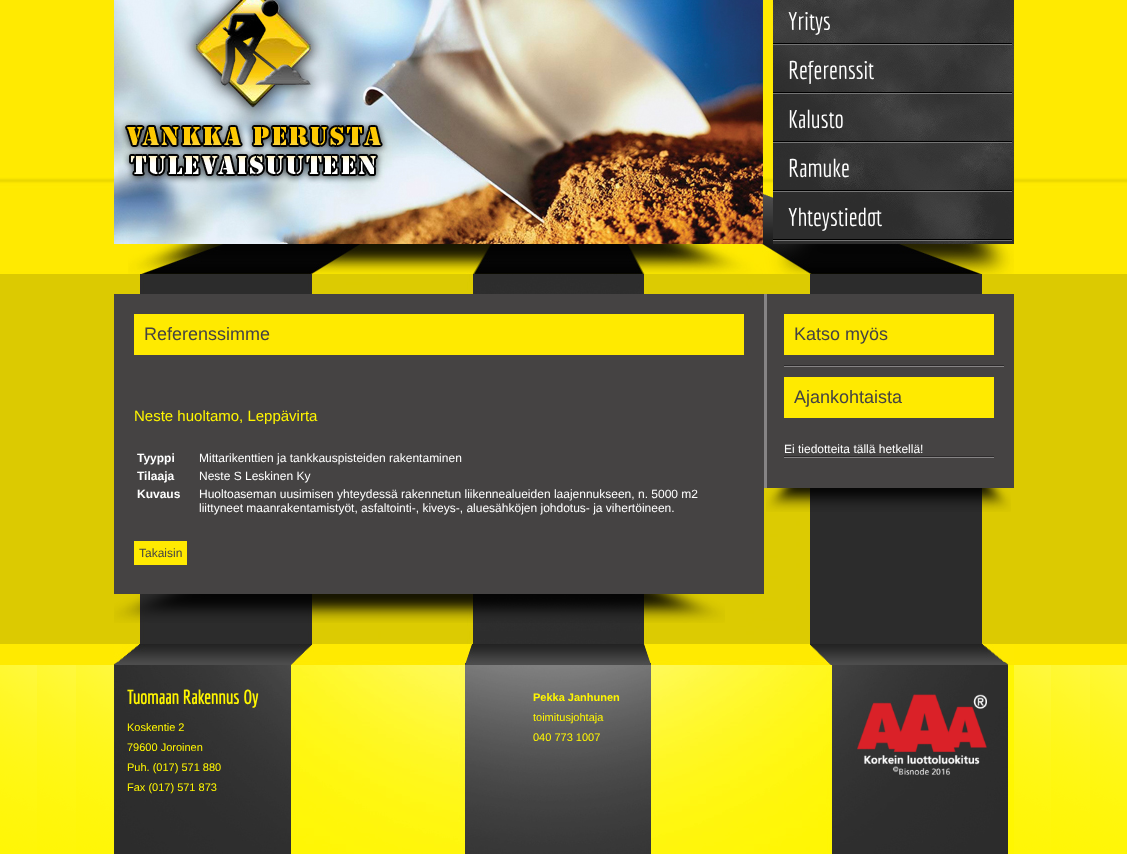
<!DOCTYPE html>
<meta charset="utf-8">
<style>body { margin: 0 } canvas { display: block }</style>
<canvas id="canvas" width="1127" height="854"></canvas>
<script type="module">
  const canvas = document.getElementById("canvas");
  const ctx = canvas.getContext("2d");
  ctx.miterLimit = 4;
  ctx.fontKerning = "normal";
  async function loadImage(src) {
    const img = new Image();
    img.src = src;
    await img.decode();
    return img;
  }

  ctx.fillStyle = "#dcca01";
  ctx.fillRect(0, 0, 1127, 854);
  ctx.drawImage(await loadImage("img1.png"), 0, 0, 1127, 274);
  ctx.drawImage(await loadImage("img2.png"), 128, 0, 886, 274);
  ctx.drawImage(await loadImage("img3.png"), 114, 0, 649, 244);
  ctx.drawImage(await loadImage("img4.png"), 773, 0, 241, 244);
  ctx.drawImage(await loadImage("img5.png"), 773, 43, 239, 2);
  ctx.font = "25px Economica";
  ctx.fillStyle = "#ffffff";
  ctx.fillText("Yritys", 788, 30);
  ctx.drawImage(await loadImage("img5.png"), 773, 92, 239, 2);
  ctx.fillText("Referenssit", 788, 79);
  ctx.drawImage(await loadImage("img5.png"), 773, 141, 239, 2);
  ctx.fillText("Kalusto", 788, 128);
  ctx.drawImage(await loadImage("img5.png"), 773, 190, 239, 2);
  ctx.fillText("Ramuke", 788, 177);
  ctx.drawImage(await loadImage("img5.png"), 773, 239, 239, 2);
  ctx.fillText("Yhteystiedot", 788, 226);
  ctx.drawImage(await loadImage("img6.png"), 140, 274, 842, 370);
  ctx.fillStyle = "#454343";
  ctx.fillRect(114, 294, 650, 300);
  ctx.fillStyle = "#ffea00";
  ctx.fillRect(134, 314, 610, 41);
  ctx.font = "18px Liberation Sans";
  ctx.fillStyle = "#454343";
  ctx.fillText("Referenssimme", 144, 340);
  ctx.font = "15px Liberation Sans";
  ctx.fillStyle = "#fff600";
  ctx.fillText("Neste huoltamo, Leppävirta", 134, 421);
  ctx.font = "bold 12px Liberation Sans";
  ctx.fillStyle = "#ffffff";
  ctx.fillText("Tyyppi", 137, 462);
  ctx.font = "12px Liberation Sans";
  ctx.fillText("Mittarikenttien ja tankkauspisteiden rakentaminen", 199, 462);
  ctx.font = "bold 12px Liberation Sans";
  ctx.fillText("Tilaaja", 137, 480);
  ctx.font = "12px Liberation Sans";
  ctx.fillText("Neste S Leskinen Ky", 199, 480);
  ctx.font = "bold 12px Liberation Sans";
  ctx.fillText("Kuvaus", 137, 498);
  ctx.font = "12px Liberation Sans";
  ctx.fillText("Huoltoaseman uusimisen yhteydessä rakennetun liikennealueiden laajennukseen, n. 5000 m2", 199, 498);
  ctx.fillText("liittyneet maanrakentamistyöt, asfaltointi-, kiveys-, aluesähköjen johdotus- ja vihertöineen.", 199, 512);
  ctx.fillStyle = "#ffea00";
  ctx.fillRect(134, 541, 53, 24);
  ctx.fillStyle = "#454343";
  ctx.fillText("Takaisin", 139, 557);
  ctx.drawImage(await loadImage("img7.png"), 114, 594, 611, 29);
  ctx.fillRect(767, 294, 247, 194);
  ctx.fillStyle = "#868485";
  ctx.fillRect(764, 294, 3, 194);
  ctx.fillStyle = "#ffea00";
  ctx.fillRect(784, 314, 210, 41);
  ctx.font = "18px Liberation Sans";
  ctx.fillStyle = "#454343";
  ctx.fillText("Katso myös", 794, 340);
  ctx.drawImage(await loadImage("img8.png"), 784, 365, 220, 2);
  ctx.fillStyle = "#ffea00";
  ctx.fillRect(784, 377, 210, 41);
  ctx.fillStyle = "#454343";
  ctx.fillText("Ajankohtaista", 794, 403);
  ctx.font = "12px Liberation Sans";
  ctx.fillStyle = "#ffffff";
  ctx.fillText("Ei tiedotteita tällä hetkellä!", 784, 453);
  ctx.drawImage(await loadImage("img9.png"), 784, 456, 210, 2);
  ctx.drawImage(await loadImage("img10.png"), 766, 488, 245, 24);
  ctx.drawImage(await loadImage("img11.png"), 0, 644, 1127, 210);
  ctx.drawImage(await loadImage("img12.png"), 114, 644, 900, 210);
  ctx.font = "bold 19px Economica";
  ctx.fillStyle = "#fff600";
  ctx.fillText("Tuomaan Rakennus Oy", 127, 704);
  ctx.font = "11px Liberation Sans";
  ctx.fillText("Koskentie 2", 127, 731);
  ctx.fillText("79600 Joroinen", 127, 751);
  ctx.fillText("Puh. (017) 571 880", 127, 771);
  ctx.fillText("Fax (017) 571 873", 127, 791);
  ctx.font = "bold 11px Liberation Sans";
  ctx.fillText("Pekka Janhunen", 533, 701);
  ctx.font = "11px Liberation Sans";
  ctx.fillText("toimitusjohtaja", 533, 721);
  ctx.fillText("040 773 1007", 533, 741);
  ctx.drawImage(await loadImage("img13.png"), 857, 694, 130, 81);
</script>
